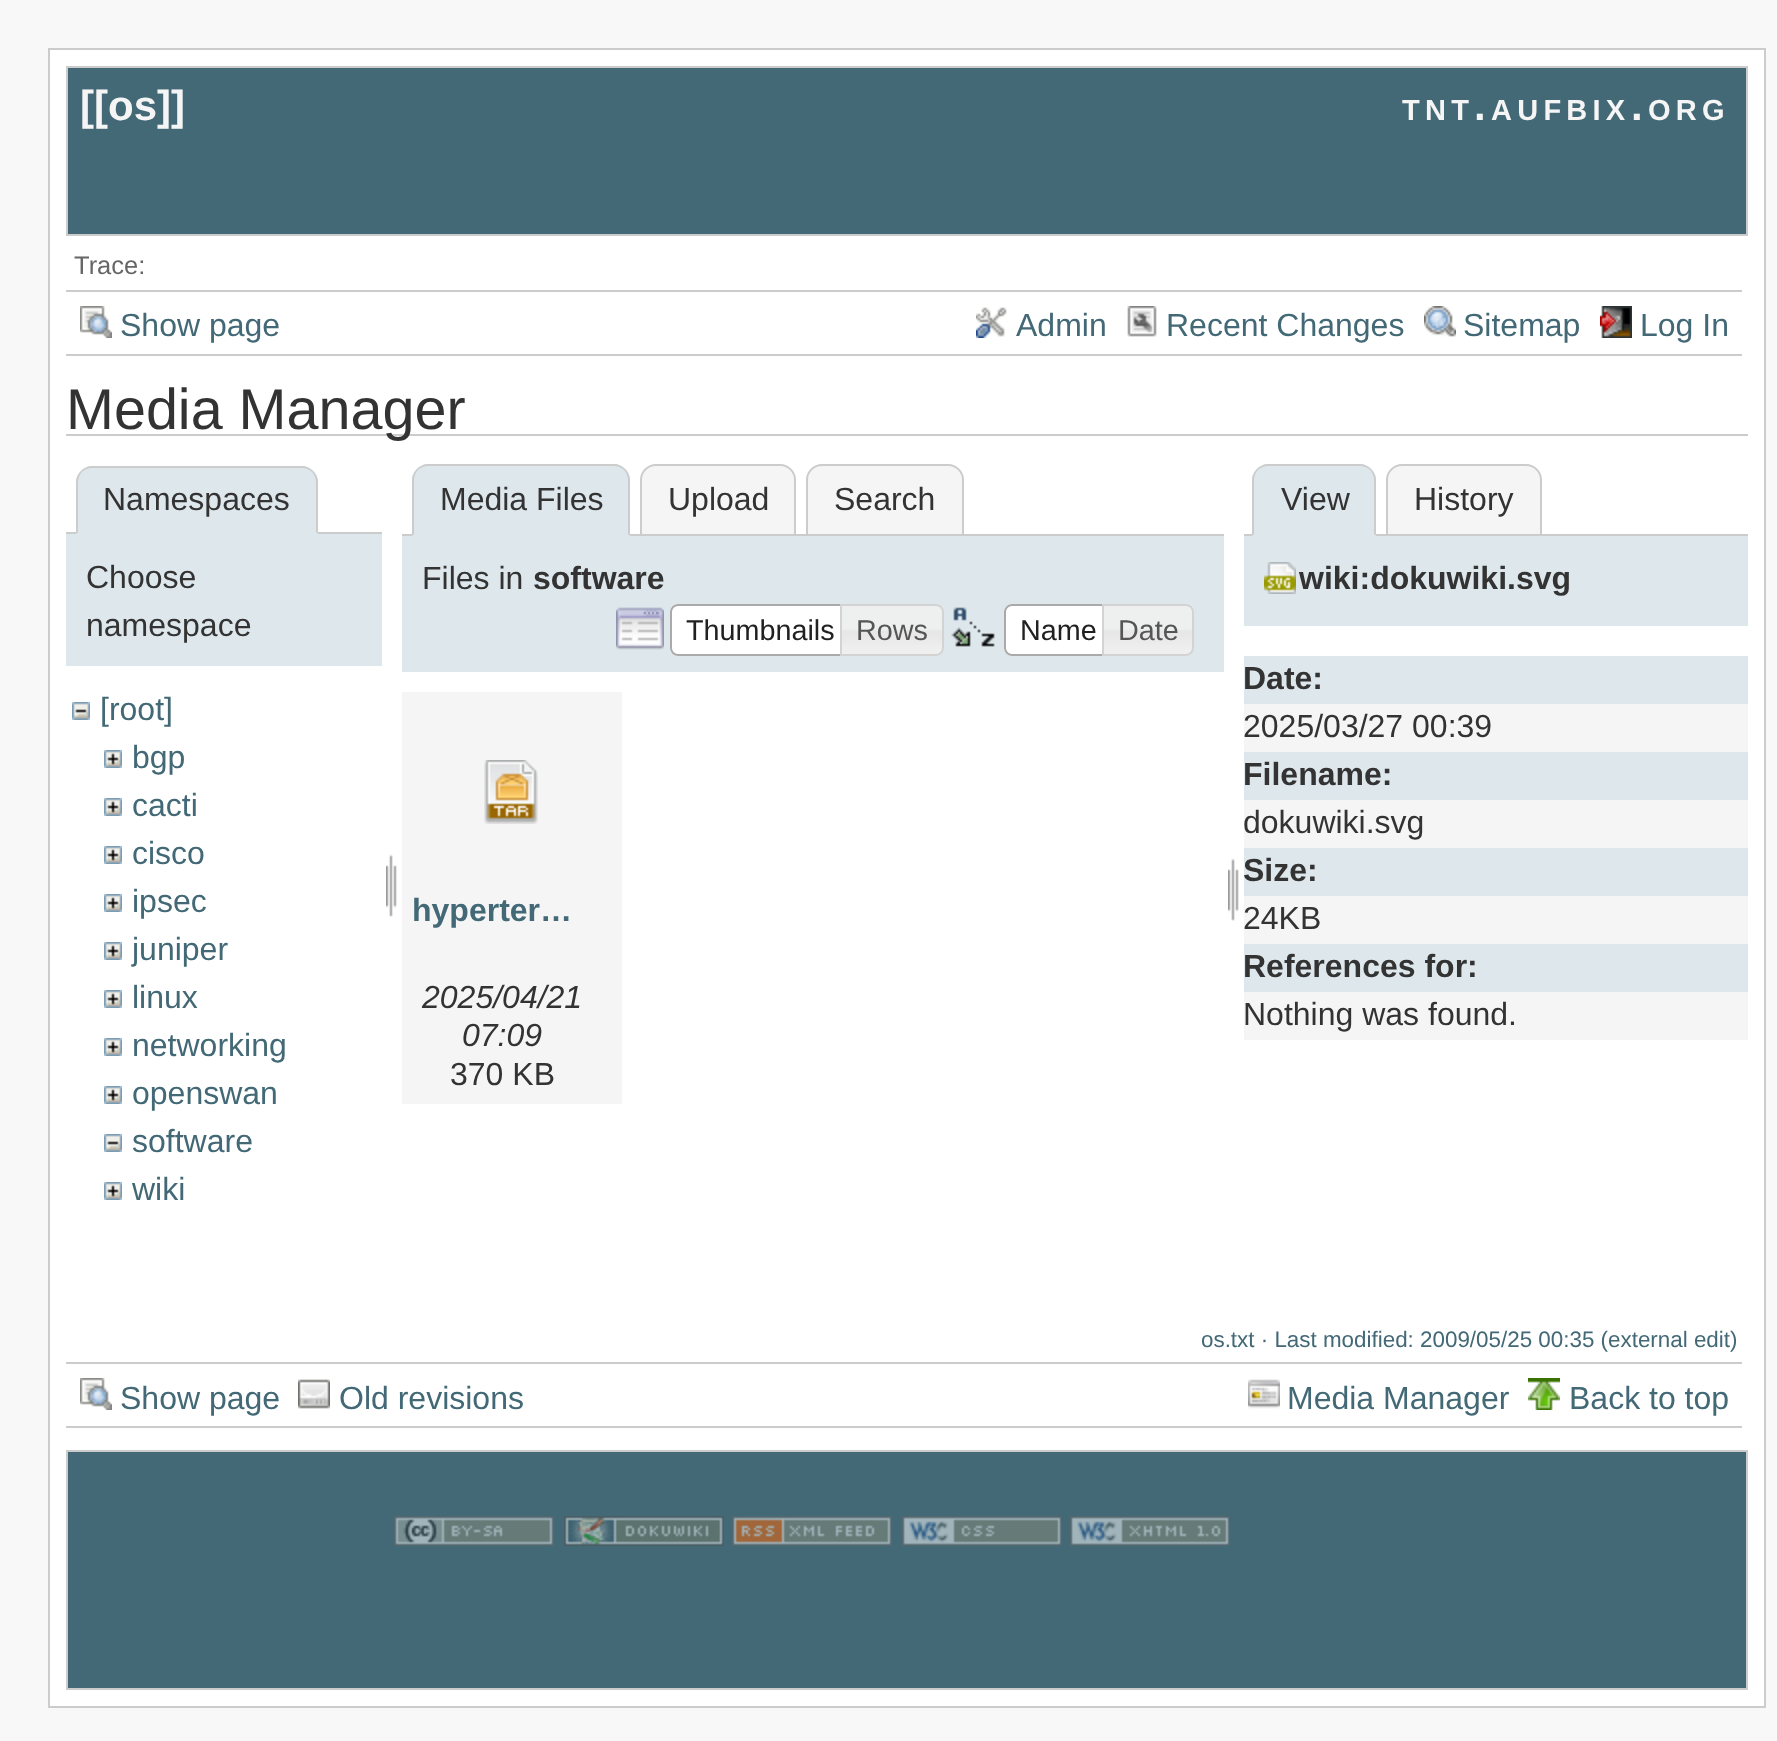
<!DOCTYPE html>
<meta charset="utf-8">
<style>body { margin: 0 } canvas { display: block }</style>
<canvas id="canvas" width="1777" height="1741"></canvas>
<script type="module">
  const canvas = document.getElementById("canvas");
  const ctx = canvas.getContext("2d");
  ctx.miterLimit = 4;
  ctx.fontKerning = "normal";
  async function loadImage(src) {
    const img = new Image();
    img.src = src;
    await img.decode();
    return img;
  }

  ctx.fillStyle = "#f8f8f8";
  ctx.fillRect(0, 0, 1777, 1741);
  ctx.fillStyle = "#ffffff";
  ctx.beginPath();
  ctx.rect(49, 49, 1716, 1658);
  ctx.fill();
  ctx.strokeStyle = "#cccccc";
  ctx.lineWidth = 2;
  ctx.stroke();
  ctx.fillStyle = "#436976";
  ctx.beginPath();
  ctx.rect(67, 67, 1680, 168);
  ctx.fill();
  ctx.stroke();
  ctx.font = "bold 42px Liberation Sans";
  ctx.fillStyle = "#f5f5f5";
  ctx.fillText("[[", 80, 120);
  ctx.fillText("os", 108, 120);
  ctx.fillText("]]", 157, 120);
  ctx.letterSpacing = "5.25px";
  ctx.font = "bold 29px Liberation Sans";
  ctx.fillText("TNT", 1402, 120);
  ctx.font = "bold 42px Liberation Sans";
  ctx.fillText(".", 1474, 120);
  ctx.font = "bold 29px Liberation Sans";
  ctx.fillText("AUFBIX", 1491, 120);
  ctx.font = "bold 42px Liberation Sans";
  ctx.fillText(".", 1631, 120);
  ctx.font = "bold 29px Liberation Sans";
  ctx.fillText("ORG", 1648, 120);
  ctx.letterSpacing = "0px";
  ctx.font = "25.5px Liberation Sans";
  ctx.fillStyle = "#666666";
  ctx.fillText("Trace:", 74, 274);
  ctx.fillStyle = "#cccccc";
  ctx.fillRect(66, 290, 1676, 2);
  ctx.fillRect(66, 354, 1676, 2);
  ctx.drawImage(await loadImage("img1.png"), 80, 306, 32, 32);
  ctx.font = "32px Liberation Sans";
  ctx.fillStyle = "#436976";
  ctx.fillText("Show page", 120, 336);
  ctx.drawImage(await loadImage("img2.png"), 976, 307, 31, 31);
  ctx.fillText("Admin", 1016, 336);
  ctx.drawImage(await loadImage("img3.png"), 1127, 306, 30, 31);
  ctx.fillText("Recent Changes", 1166, 336);
  ctx.drawImage(await loadImage("img4.png"), 1424, 306, 32, 31);
  ctx.fillText("Sitemap", 1463, 336);
  ctx.drawImage(await loadImage("img5.png"), 1600, 306, 32, 32);
  ctx.fillText("Log In", 1640, 336);
  ctx.fillStyle = "#cccccc";
  ctx.fillRect(66, 434, 1682, 2);
  ctx.font = "57.5px Liberation Sans";
  ctx.fillStyle = "#333333";
  ctx.fillText("Media Manager", 66, 429);
  ctx.fillStyle = "#cccccc";
  ctx.fillRect(66, 532, 316, 2);
  ctx.fillStyle = "#dee7ec";
  ctx.beginPath();
  ctx.roundRect(76, 466, 242, 68, [16, 16, 0, 0]);
  ctx.fill();
  ctx.fillStyle = "#cccccc";
  ctx.beginPath();
  ctx.moveTo(92, 466);
  ctx.bezierCurveTo(88, 466, 84, 468, 81, 471);
  ctx.lineTo(82, 472);
  ctx.bezierCurveTo(84, 470, 88, 468, 92, 468);
  ctx.lineTo(302, 468);
  ctx.bezierCurveTo(306, 468, 310, 470, 312, 472);
  ctx.lineTo(313, 471);
  ctx.bezierCurveTo(310, 468, 306, 466, 302, 466);
  ctx.closePath();
  ctx.fill();
  ctx.beginPath();
  ctx.moveTo(318, 534);
  ctx.lineTo(318, 482);
  ctx.bezierCurveTo(318, 478, 316, 474, 313, 471);
  ctx.lineTo(312, 472);
  ctx.bezierCurveTo(314, 474, 316, 478, 316, 482);
  ctx.lineTo(316, 532);
  ctx.closePath();
  ctx.fill();
  ctx.fillStyle = "#dee7ec";
  ctx.beginPath();
  ctx.moveTo(318, 534);
  ctx.lineTo(316, 532);
  ctx.lineTo(78, 532);
  ctx.lineTo(76, 534);
  ctx.closePath();
  ctx.fill();
  ctx.fillStyle = "#cccccc";
  ctx.beginPath();
  ctx.moveTo(76, 534);
  ctx.lineTo(78, 532);
  ctx.lineTo(78, 482);
  ctx.bezierCurveTo(78, 478, 80, 474, 82, 472);
  ctx.lineTo(81, 471);
  ctx.bezierCurveTo(78, 474, 76, 478, 76, 482);
  ctx.closePath();
  ctx.fill();
  ctx.font = "32px Liberation Sans";
  ctx.fillStyle = "#333333";
  ctx.fillText("Namespaces", 103, 510);
  ctx.fillStyle = "#dee7ec";
  ctx.fillRect(66, 534, 316, 132);
  ctx.fillStyle = "#333333";
  ctx.fillText("Choose", 86, 588);
  ctx.fillText("namespace", 86, 636);
  ctx.drawImage(await loadImage("img6.png"), 72, 702, 18, 18);
  ctx.fillStyle = "#436976";
  ctx.fillText("[root]", 100, 720);
  ctx.drawImage(await loadImage("img7.png"), 104, 750, 18, 18);
  ctx.fillText("bgp", 132, 768);
  ctx.drawImage(await loadImage("img7.png"), 104, 798, 18, 18);
  ctx.fillText("cacti", 132, 816);
  ctx.drawImage(await loadImage("img7.png"), 104, 846, 18, 18);
  ctx.fillText("cisco", 132, 864);
  ctx.drawImage(await loadImage("img7.png"), 104, 894, 18, 18);
  ctx.fillText("ipsec", 132, 912);
  ctx.drawImage(await loadImage("img7.png"), 104, 942, 18, 18);
  ctx.fillText("juniper", 132, 960);
  ctx.drawImage(await loadImage("img7.png"), 104, 990, 18, 18);
  ctx.fillText("linux", 132, 1008);
  ctx.drawImage(await loadImage("img7.png"), 104, 1038, 18, 18);
  ctx.fillText("networking", 132, 1056);
  ctx.drawImage(await loadImage("img7.png"), 104, 1086, 18, 18);
  ctx.fillText("openswan", 132, 1104);
  ctx.drawImage(await loadImage("img6.png"), 104, 1134, 18, 18);
  ctx.fillText("software", 132, 1152);
  ctx.drawImage(await loadImage("img7.png"), 104, 1182, 18, 18);
  ctx.fillText("wiki", 132, 1200);
  ctx.drawImage(await loadImage("img8.png"), 386, 854, 11, 63);
  ctx.fillStyle = "#f5f5f5";
  ctx.beginPath();
  ctx.roundRect(641, 465, 154, 70, [15, 15, 0, 0]);
  ctx.fill();
  ctx.stroke();
  ctx.beginPath();
  ctx.roundRect(807, 465, 156, 70, [15, 15, 0, 0]);
  ctx.fill();
  ctx.stroke();
  ctx.fillStyle = "#cccccc";
  ctx.fillRect(402, 534, 822, 2);
  ctx.fillStyle = "#dee7ec";
  ctx.beginPath();
  ctx.roundRect(412, 464, 218, 72, [16, 16, 0, 0]);
  ctx.fill();
  ctx.fillStyle = "#cccccc";
  ctx.beginPath();
  ctx.moveTo(428, 464);
  ctx.bezierCurveTo(424, 464, 420, 466, 417, 469);
  ctx.lineTo(418, 470);
  ctx.bezierCurveTo(420, 468, 424, 466, 428, 466);
  ctx.lineTo(614, 466);
  ctx.bezierCurveTo(618, 466, 622, 468, 624, 470);
  ctx.lineTo(625, 469);
  ctx.bezierCurveTo(622, 466, 618, 464, 614, 464);
  ctx.closePath();
  ctx.fill();
  ctx.beginPath();
  ctx.moveTo(630, 536);
  ctx.lineTo(630, 480);
  ctx.bezierCurveTo(630, 476, 628, 472, 625, 469);
  ctx.lineTo(624, 470);
  ctx.bezierCurveTo(626, 472, 628, 476, 628, 480);
  ctx.lineTo(628, 534);
  ctx.closePath();
  ctx.fill();
  ctx.fillStyle = "#dee7ec";
  ctx.beginPath();
  ctx.moveTo(630, 536);
  ctx.lineTo(628, 534);
  ctx.lineTo(414, 534);
  ctx.lineTo(412, 536);
  ctx.closePath();
  ctx.fill();
  ctx.fillStyle = "#cccccc";
  ctx.beginPath();
  ctx.moveTo(412, 536);
  ctx.lineTo(414, 534);
  ctx.lineTo(414, 480);
  ctx.bezierCurveTo(414, 476, 416, 472, 418, 470);
  ctx.lineTo(417, 469);
  ctx.bezierCurveTo(414, 472, 412, 476, 412, 480);
  ctx.closePath();
  ctx.fill();
  ctx.fillStyle = "#333333";
  ctx.fillText("Media Files", 440, 510);
  ctx.fillText("Upload", 668, 510);
  ctx.fillText("Search", 834, 510);
  ctx.fillStyle = "#dee7ec";
  ctx.fillRect(402, 536, 822, 136);
  ctx.fillStyle = "#333333";
  ctx.fillText("Files in", 422, 589);
  ctx.font = "bold 32px Liberation Sans";
  ctx.fillText("software", 533, 589);
  ctx.drawImage(await loadImage("img9.png"), 616, 607, 48, 43);
  ctx.fillStyle = "#ffffff";
  ctx.beginPath();
  ctx.roundRect(670, 604, 182, 52, [8, 0, 0, 8]);
  ctx.fill();
  ctx.drawImage(await loadImage("img10.png"), 670, 604, 7, 52);
  ctx.beginPath();
  ctx.roundRect(671, 605, 180, 50, [7, 0, 0, 7]);
  ctx.strokeStyle = "#aaaaaa";
  ctx.stroke();
  ctx.font = "28.75px Liberation Sans";
  ctx.fillStyle = "#212121";
  ctx.fillText("Thumbnails", 686, 640);
  ctx.drawImage(await loadImage("img11.png"), 842, 604, 102, 52);
  ctx.beginPath();
  ctx.roundRect(841, 605, 102, 50, [0, 7, 7, 0]);
  ctx.strokeStyle = "#d3d3d3";
  ctx.stroke();
  ctx.fillStyle = "#555555";
  ctx.fillText("Rows", 856, 640);
  ctx.drawImage(await loadImage("img12.png"), 951, 607, 44, 40);
  ctx.fillStyle = "#ffffff";
  ctx.beginPath();
  ctx.roundRect(1004, 604, 108, 52, [8, 0, 0, 8]);
  ctx.fill();
  ctx.drawImage(await loadImage("img10.png"), 1004, 604, 7, 52);
  ctx.beginPath();
  ctx.roundRect(1005, 605, 106, 50, [7, 0, 0, 7]);
  ctx.strokeStyle = "#aaaaaa";
  ctx.stroke();
  ctx.fillStyle = "#212121";
  ctx.fillText("Name", 1020, 640);
  ctx.drawImage(await loadImage("img13.png"), 1104, 604, 90, 52);
  ctx.beginPath();
  ctx.roundRect(1103, 605, 90, 50, [0, 7, 7, 0]);
  ctx.strokeStyle = "#d3d3d3";
  ctx.stroke();
  ctx.fillStyle = "#555555";
  ctx.fillText("Date", 1118, 640);
  ctx.drawImage(await loadImage("img8.png"), 1228, 858, 11, 63);
  ctx.fillStyle = "#f5f5f5";
  ctx.fillRect(402, 692, 220, 412);
  ctx.drawImage(await loadImage("img14.png"), 484, 760, 54, 64);
  ctx.font = "bold 32px Liberation Sans";
  ctx.fillStyle = "#436976";
  ctx.fillText("hyperter…", 412, 921);
  ctx.font = "italic 32px Liberation Sans";
  ctx.fillStyle = "#333333";
  ctx.fillText("2025/04/21", 422, 1008);
  ctx.fillText("07:09", 462, 1046);
  ctx.font = "32px Liberation Sans";
  ctx.fillText("370 KB", 450, 1085);
  ctx.fillStyle = "#f5f5f5";
  ctx.beginPath();
  ctx.roundRect(1387, 465, 154, 70, [15, 15, 0, 0]);
  ctx.fill();
  ctx.strokeStyle = "#cccccc";
  ctx.stroke();
  ctx.fillStyle = "#cccccc";
  ctx.fillRect(1244, 534, 504, 2);
  ctx.fillStyle = "#dee7ec";
  ctx.beginPath();
  ctx.roundRect(1252, 464, 124, 72, [16, 16, 0, 0]);
  ctx.fill();
  ctx.fillStyle = "#cccccc";
  ctx.beginPath();
  ctx.moveTo(1268, 464);
  ctx.bezierCurveTo(1264, 464, 1260, 466, 1257, 469);
  ctx.lineTo(1258, 470);
  ctx.bezierCurveTo(1260, 468, 1264, 466, 1268, 466);
  ctx.lineTo(1360, 466);
  ctx.bezierCurveTo(1364, 466, 1368, 468, 1370, 470);
  ctx.lineTo(1371, 469);
  ctx.bezierCurveTo(1368, 466, 1364, 464, 1360, 464);
  ctx.closePath();
  ctx.fill();
  ctx.beginPath();
  ctx.moveTo(1376, 536);
  ctx.lineTo(1376, 480);
  ctx.bezierCurveTo(1376, 476, 1374, 472, 1371, 469);
  ctx.lineTo(1370, 470);
  ctx.bezierCurveTo(1372, 472, 1374, 476, 1374, 480);
  ctx.lineTo(1374, 534);
  ctx.closePath();
  ctx.fill();
  ctx.fillStyle = "#dee7ec";
  ctx.beginPath();
  ctx.moveTo(1376, 536);
  ctx.lineTo(1374, 534);
  ctx.lineTo(1254, 534);
  ctx.lineTo(1252, 536);
  ctx.closePath();
  ctx.fill();
  ctx.fillStyle = "#cccccc";
  ctx.beginPath();
  ctx.moveTo(1252, 536);
  ctx.lineTo(1254, 534);
  ctx.lineTo(1254, 480);
  ctx.bezierCurveTo(1254, 476, 1256, 472, 1258, 470);
  ctx.lineTo(1257, 469);
  ctx.bezierCurveTo(1254, 472, 1252, 476, 1252, 480);
  ctx.closePath();
  ctx.fill();
  ctx.fillStyle = "#333333";
  ctx.fillText("View", 1281, 510);
  ctx.fillText("History", 1414, 510);
  ctx.fillStyle = "#dee7ec";
  ctx.fillRect(1244, 536, 504, 90);
  ctx.drawImage(await loadImage("img15.png"), 1264, 562, 32, 32);
  ctx.font = "bold 32px Liberation Sans";
  ctx.fillStyle = "#333333";
  ctx.fillText("wiki:dokuwiki.svg", 1299, 589);
  ctx.fillStyle = "#dee7ec";
  ctx.fillRect(1244, 656, 504, 48);
  ctx.fillStyle = "#333333";
  ctx.fillText("Date:", 1243, 689);
  ctx.fillStyle = "#f5f5f5";
  ctx.fillRect(1244, 704, 504, 48);
  ctx.font = "32px Liberation Sans";
  ctx.fillStyle = "#333333";
  ctx.fillText("2025/03/27 00:39", 1243, 737);
  ctx.fillStyle = "#dee7ec";
  ctx.fillRect(1244, 752, 504, 48);
  ctx.font = "bold 32px Liberation Sans";
  ctx.fillStyle = "#333333";
  ctx.fillText("Filename:", 1243, 785);
  ctx.fillStyle = "#f5f5f5";
  ctx.fillRect(1244, 800, 504, 48);
  ctx.font = "32px Liberation Sans";
  ctx.fillStyle = "#333333";
  ctx.fillText("dokuwiki.svg", 1243, 833);
  ctx.fillStyle = "#dee7ec";
  ctx.fillRect(1244, 848, 504, 48);
  ctx.font = "bold 32px Liberation Sans";
  ctx.fillStyle = "#333333";
  ctx.fillText("Size:", 1243, 881);
  ctx.fillStyle = "#f5f5f5";
  ctx.fillRect(1244, 896, 504, 48);
  ctx.font = "32px Liberation Sans";
  ctx.fillStyle = "#333333";
  ctx.fillText("24KB", 1243, 929);
  ctx.fillStyle = "#dee7ec";
  ctx.fillRect(1244, 944, 504, 48);
  ctx.font = "bold 32px Liberation Sans";
  ctx.fillStyle = "#333333";
  ctx.fillText("References for:", 1243, 977);
  ctx.fillStyle = "#f5f5f5";
  ctx.fillRect(1244, 992, 504, 48);
  ctx.font = "32px Liberation Sans";
  ctx.fillStyle = "#333333";
  ctx.fillText("Nothing was found.", 1243, 1025);
  ctx.font = "22.4px Liberation Sans";
  ctx.fillStyle = "#436976";
  ctx.fillText("os.txt · Last modified: 2009/05/25 00:35 (external edit)", 1201, 1347);
  ctx.fillStyle = "#cccccc";
  ctx.fillRect(66, 1362, 1676, 2);
  ctx.fillRect(66, 1426, 1676, 2);
  ctx.drawImage(await loadImage("img1.png"), 80, 1378, 32, 32);
  ctx.font = "32px Liberation Sans";
  ctx.fillStyle = "#436976";
  ctx.fillText("Show page", 120, 1409);
  ctx.drawImage(await loadImage("img16.png"), 298, 1379, 32, 30);
  ctx.fillText("Old revisions", 339, 1409);
  ctx.drawImage(await loadImage("img17.png"), 1248, 1379, 32, 30);
  ctx.fillText("Media Manager", 1287, 1409);
  ctx.drawImage(await loadImage("img18.png"), 1528, 1378, 32, 32);
  ctx.fillText("Back to top", 1569, 1409);
  ctx.beginPath();
  ctx.rect(67, 1451, 1680, 238);
  ctx.fill();
  ctx.stroke();
  ctx.drawImage(await loadImage("img19.png"), 394, 1516, 160, 30);
  ctx.drawImage(await loadImage("img20.png"), 564, 1516, 160, 30);
  ctx.drawImage(await loadImage("img21.png"), 732, 1516, 160, 30);
  ctx.drawImage(await loadImage("img22.png"), 902, 1516, 160, 30);
  ctx.drawImage(await loadImage("img23.png"), 1070, 1516, 160, 30);
</script>
